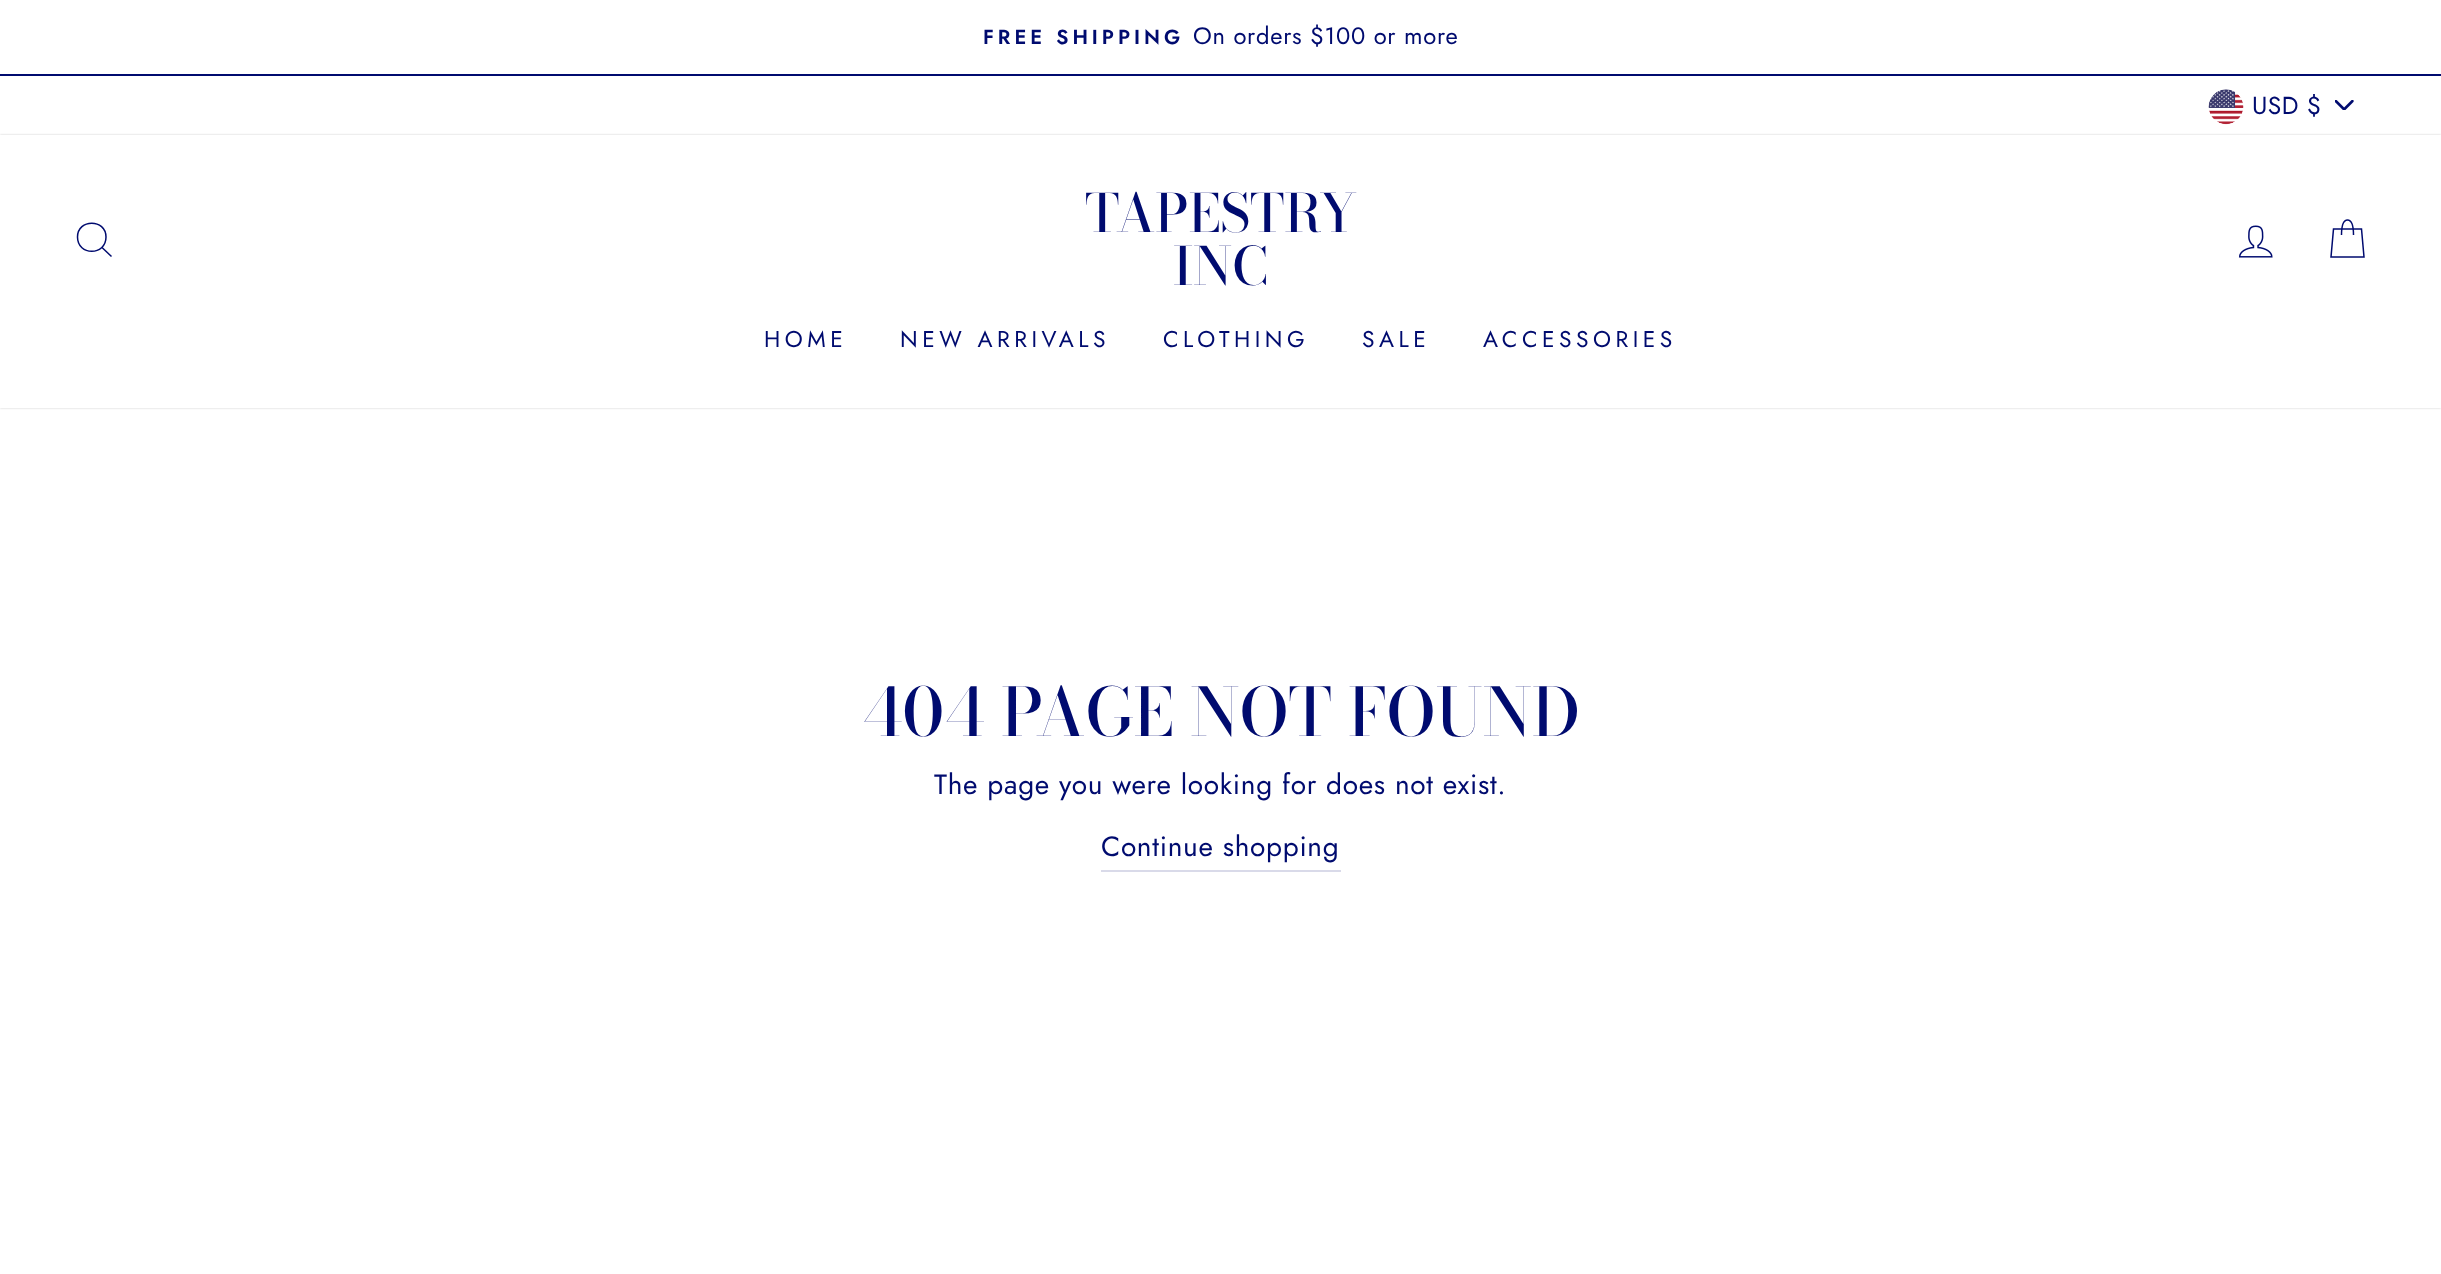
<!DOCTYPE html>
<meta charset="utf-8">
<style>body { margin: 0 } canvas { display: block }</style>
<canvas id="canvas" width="2441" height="1274"></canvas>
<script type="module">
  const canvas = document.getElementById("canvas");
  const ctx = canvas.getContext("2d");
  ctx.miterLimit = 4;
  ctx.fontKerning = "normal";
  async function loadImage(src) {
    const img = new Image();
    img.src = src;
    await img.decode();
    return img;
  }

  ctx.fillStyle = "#ffffff";
  ctx.fillRect(0, 0, 2441, 1274);
  ctx.fillStyle = "#000b6f";
  ctx.fillRect(0, 74, 2441, 2);
  ctx.letterSpacing = "4px";
  ctx.font = "600 20.25px Jost";
  ctx.fillText("FREE SHIPPING", 983, 44);
  ctx.letterSpacing = "0.7px";
  ctx.font = "23.75px Jost";
  ctx.fillText("On orders $100 or more", 1193, 44);
  ctx.drawImage(await loadImage("img1.png"), 2335, 100, 19, 10);
  ctx.drawImage(await loadImage("img2.png"), 2208, 89, 36, 36);
  ctx.letterSpacing = "0.5px";
  ctx.font = "24.5px Jost";
  ctx.fillText("USD $", 2252, 114);
  ctx.fillStyle = "rgba(0, 0, 0, 0.2)";
  ctx.filter = "blur(1px)";
  ctx.beginPath();
  ctx.rect(0, 135, 2441, 273);
  ctx.fill();
  ctx.filter = "none";
  ctx.fillStyle = "#ffffff";
  ctx.fillRect(0, 135, 2441, 273);
  ctx.beginPath();
  ctx.moveTo(106, 237);
  ctx.bezierCurveTo(106, 256, 77.5, 256, 77.5, 237);
  ctx.bezierCurveTo(77.5, 218.5, 106, 218.5, 106, 237);
  ctx.closePath();
  ctx.moveTo(111.5, 256.5);
  ctx.lineTo(102, 247.5);
  ctx.strokeStyle = "#000b6f";
  ctx.lineWidth = 1.5;
  ctx.stroke();
  ctx.letterSpacing = "0px";
  ctx.font = "500 52.5px 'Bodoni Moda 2'";
  ctx.fillStyle = "#000b6f";
  ctx.fillText("TAPESTRY", 1085, 232);
  ctx.fillText("INC", 1173, 285);
  ctx.drawImage(await loadImage("img3.png"), 2238, 225, 35, 33);
  ctx.beginPath();
  ctx.moveTo(2341.5, 235);
  ctx.bezierCurveTo(2341.5, 223, 2344, 220, 2347.5, 220);
  ctx.bezierCurveTo(2351, 220, 2353.5, 223, 2353.5, 235);
  ctx.moveTo(2333.5, 229);
  ctx.lineTo(2361.5, 229);
  ctx.lineTo(2364, 257);
  ctx.lineTo(2331, 257);
  ctx.closePath();
  ctx.stroke();
  ctx.letterSpacing = "4.5px";
  ctx.font = "22.75px Jost";
  ctx.fillText("HOME", 764, 347);
  ctx.fillText("NEW ARRIVALS", 900, 347);
  ctx.fillText("CLOTHING", 1163, 347);
  ctx.fillText("SALE", 1362, 347);
  ctx.fillText("ACCESSORIES", 1483, 347);
  ctx.letterSpacing = "0px";
  ctx.font = "500 66.5px Bodoni Moda";
  ctx.fillText("404 PAGE NOT FOUND", 862, 736);
  ctx.letterSpacing = "0.7px";
  ctx.font = "28px Jost";
  ctx.fillText("The page you were looking for does not exist.", 934, 794);
  ctx.fillStyle = "#d9dae9";
  ctx.fillRect(1101, 870, 240, 2);
  ctx.fillStyle = "#000b6f";
  ctx.fillText("Continue shopping", 1101, 856);
</script>
